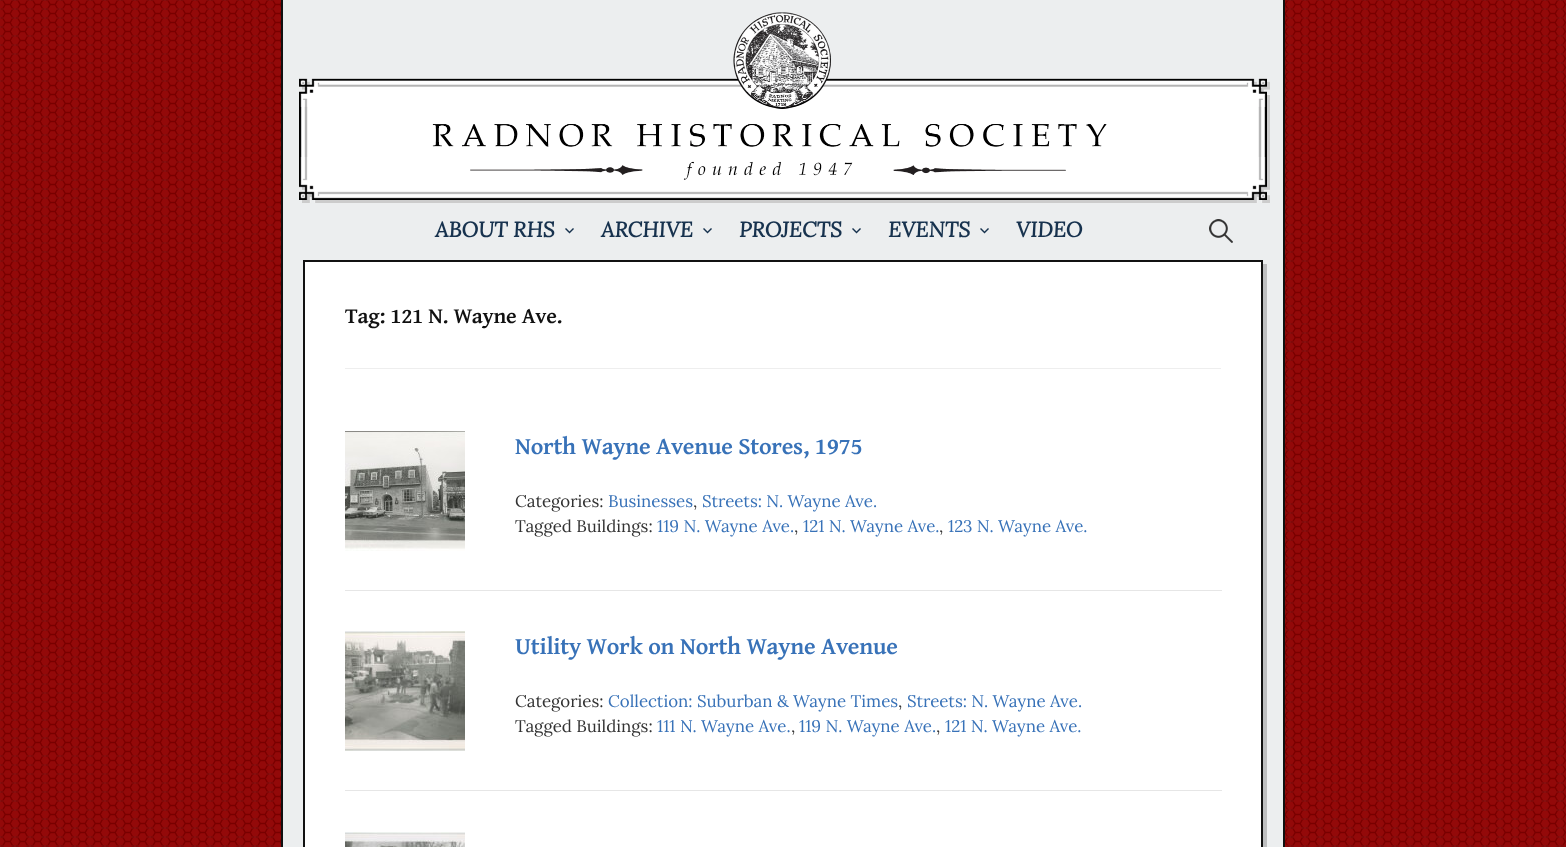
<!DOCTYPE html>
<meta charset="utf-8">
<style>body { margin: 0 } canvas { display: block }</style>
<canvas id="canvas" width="1566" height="847"></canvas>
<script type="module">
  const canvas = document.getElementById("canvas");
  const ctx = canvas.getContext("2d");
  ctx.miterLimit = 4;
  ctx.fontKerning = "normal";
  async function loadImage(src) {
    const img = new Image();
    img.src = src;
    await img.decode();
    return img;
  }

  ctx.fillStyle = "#ffffff";
  ctx.fillRect(0, 0, 1566, 847);
  ctx.drawImage(await loadImage("img1.png"), 0, 0, 1566, 847);
  ctx.fillStyle = "#eceeef";
  ctx.beginPath();
  ctx.rect(282, -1, 1002, 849);
  ctx.fill();
  ctx.strokeStyle = "#111111";
  ctx.lineWidth = 2;
  ctx.stroke();
  ctx.drawImage(await loadImage("img2.png"), 299, 12, 971, 191);
  ctx.font = "italic bold 21.25px Lora";
  ctx.fillStyle = "#17324e";
  ctx.fillText("ABOUT RHS", 435, 237);
  ctx.drawImage(await loadImage("img3.png"), 565, 228, 9, 6);
  ctx.fillText("ARCHIVE", 601, 237);
  ctx.drawImage(await loadImage("img3.png"), 703, 228, 9, 6);
  ctx.fillText("PROJECTS", 739, 237);
  ctx.drawImage(await loadImage("img3.png"), 852, 228, 9, 6);
  ctx.fillText("EVENTS", 888, 237);
  ctx.drawImage(await loadImage("img3.png"), 980, 228, 9, 6);
  ctx.fillText("VIDEO", 1016, 237);
  ctx.drawImage(await loadImage("img4.png"), 1209, 219, 24, 24);
  ctx.fillStyle = "#bdbebf";
  ctx.beginPath();
  ctx.moveTo(307, 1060);
  ctx.lineTo(307, 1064);
  ctx.lineTo(1267, 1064);
  ctx.lineTo(1267, 264);
  ctx.lineTo(1263, 264);
  ctx.lineTo(1263, 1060);
  ctx.closePath();
  ctx.fill();
  ctx.fillStyle = "#ffffff";
  ctx.beginPath();
  ctx.rect(304, 261, 958, 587);
  ctx.fill();
  ctx.stroke();
  ctx.fillStyle = "#eeeeee";
  ctx.fillRect(345, 368, 876, 1);
  ctx.letterSpacing = "-0.25px";
  ctx.font = "bold 22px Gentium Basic";
  ctx.fillStyle = "#111111";
  ctx.fillText("Tag: 121 N. Wayne Ave.", 345, 323);
  ctx.drawImage(await loadImage("img5.png"), 345, 431, 120, 120);
  ctx.fillStyle = "#e6e6e6";
  ctx.fillRect(345, 590, 877, 1);
  ctx.font = "bold 24px Gentium Basic";
  ctx.fillStyle = "#3872b8";
  ctx.fillText("North Wayne Avenue Stores, 1975", 515, 454);
  ctx.letterSpacing = "0px";
  ctx.font = "16.9px Lora";
  ctx.fillStyle = "#333333";
  ctx.fillText("Categories:", 515, 507);
  ctx.fillStyle = "#3872b8";
  ctx.fillText("Businesses", 608, 507);
  ctx.fillStyle = "#333333";
  ctx.fillText(",", 693, 507);
  ctx.fillStyle = "#3872b8";
  ctx.fillText("Streets: N. Wayne Ave.", 702, 507);
  ctx.fillStyle = "#333333";
  ctx.fillText("Tagged Buildings:", 515, 532);
  ctx.fillStyle = "#3872b8";
  ctx.fillText("119 N. Wayne Ave.", 657, 532);
  ctx.fillStyle = "#333333";
  ctx.fillText(",", 794, 532);
  ctx.fillStyle = "#3872b8";
  ctx.fillText("121 N. Wayne Ave.", 803, 532);
  ctx.fillStyle = "#333333";
  ctx.fillText(",", 939, 532);
  ctx.fillStyle = "#3872b8";
  ctx.fillText("123 N. Wayne Ave.", 948, 532);
  ctx.drawImage(await loadImage("img6.png"), 345, 631, 120, 120);
  ctx.fillStyle = "#e6e6e6";
  ctx.fillRect(345, 790, 877, 1);
  ctx.letterSpacing = "-0.25px";
  ctx.font = "bold 24px Gentium Basic";
  ctx.fillStyle = "#3872b8";
  ctx.fillText("Utility Work on North Wayne Avenue", 515, 654);
  ctx.letterSpacing = "0px";
  ctx.font = "16.9px Lora";
  ctx.fillStyle = "#333333";
  ctx.fillText("Categories:", 515, 707);
  ctx.fillStyle = "#3872b8";
  ctx.fillText("Collection: Suburban & Wayne Times", 608, 707);
  ctx.fillStyle = "#333333";
  ctx.fillText(",", 898, 707);
  ctx.fillStyle = "#3872b8";
  ctx.fillText("Streets: N. Wayne Ave.", 907, 707);
  ctx.fillStyle = "#333333";
  ctx.fillText("Tagged Buildings:", 515, 732);
  ctx.fillStyle = "#3872b8";
  ctx.fillText("111 N. Wayne Ave.", 657, 732);
  ctx.fillStyle = "#333333";
  ctx.fillText(",", 791, 732);
  ctx.fillStyle = "#3872b8";
  ctx.fillText("119 N. Wayne Ave.", 799, 732);
  ctx.fillStyle = "#333333";
  ctx.fillText(",", 936, 732);
  ctx.fillStyle = "#3872b8";
  ctx.fillText("121 N. Wayne Ave.", 945, 732);
  ctx.drawImage(await loadImage("img7.png"), 345, 832, 120, 15);
</script>
